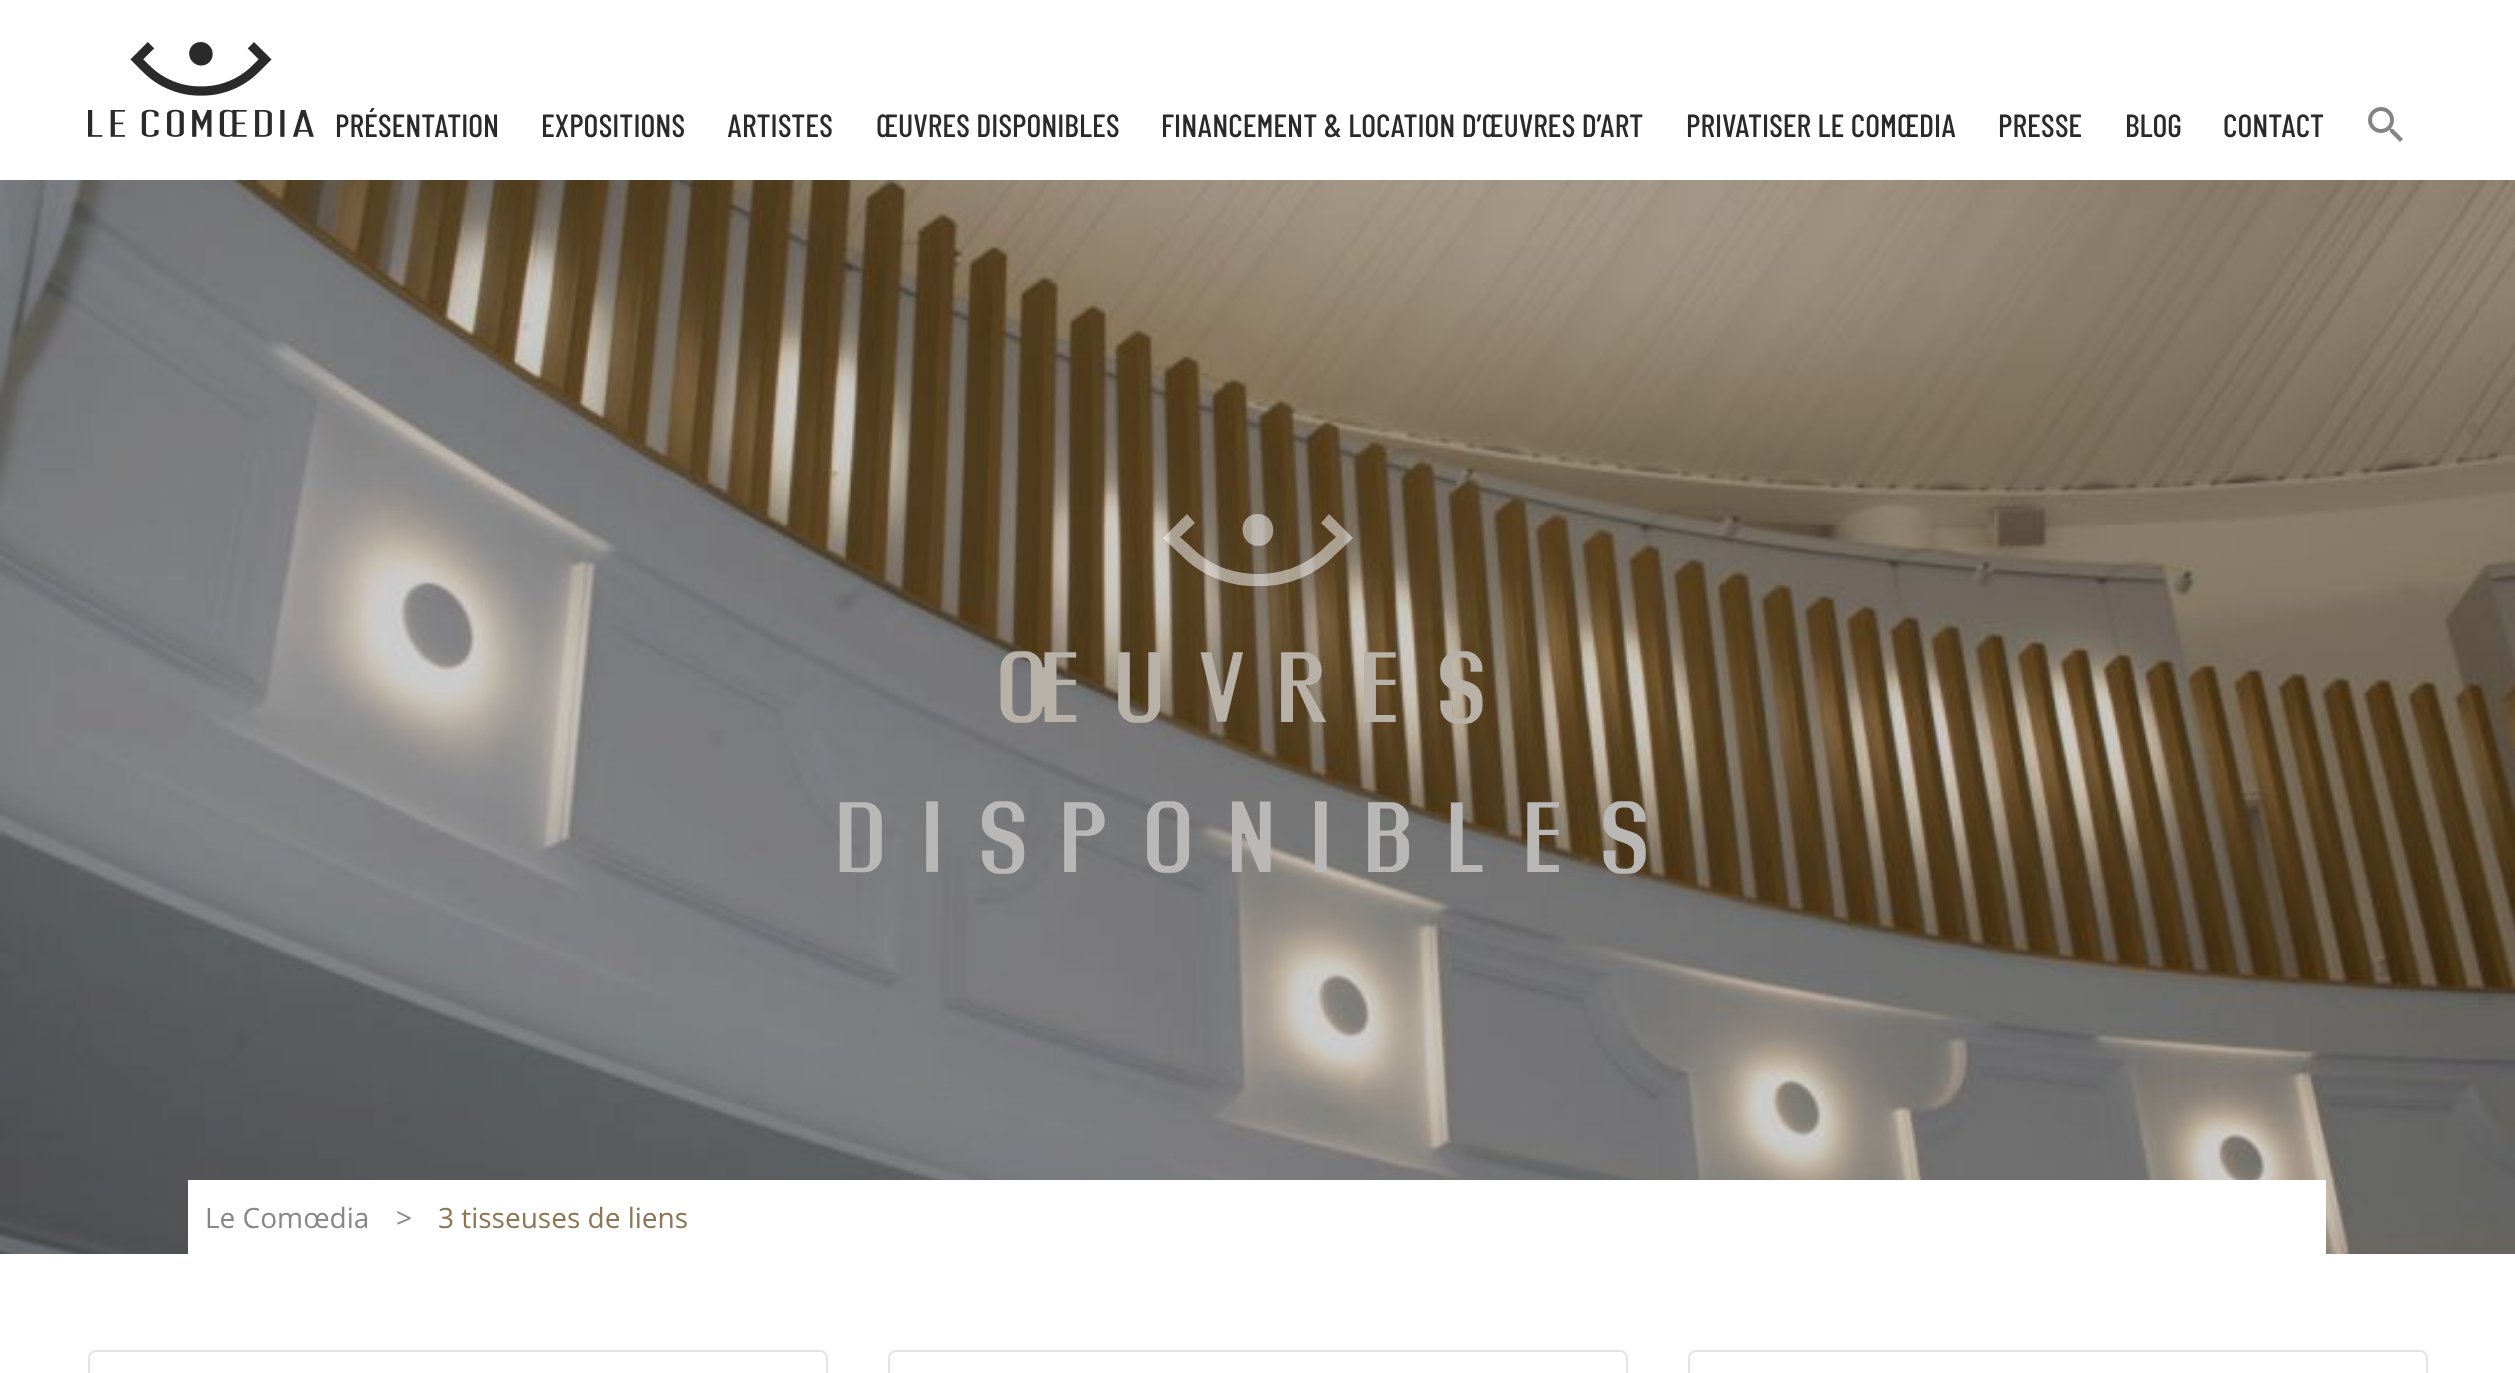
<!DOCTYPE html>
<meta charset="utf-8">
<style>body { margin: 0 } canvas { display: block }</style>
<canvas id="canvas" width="2515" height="1373"></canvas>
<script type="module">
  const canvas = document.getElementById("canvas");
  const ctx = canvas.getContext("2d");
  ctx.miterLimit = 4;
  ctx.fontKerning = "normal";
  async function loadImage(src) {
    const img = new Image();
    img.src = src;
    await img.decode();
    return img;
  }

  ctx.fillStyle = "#ffffff";
  ctx.fillRect(0, 0, 2515, 1373);
  ctx.drawImage(await loadImage("img1.png"), 88, 42, 226, 95);
  ctx.font = "500 32px Barlow Condensed";
  ctx.fillStyle = "#2a2a2a";
  ctx.fillText("PRÉSENTATION", 335, 137);
  ctx.fillText("EXPOSITIONS", 541, 137);
  ctx.fillText("ARTISTES", 727, 137);
  ctx.fillText("ŒUVRES DISPONIBLES", 876, 137);
  ctx.fillText("FINANCEMENT & LOCATION D’ŒUVRES D’ART", 1161, 137);
  ctx.fillText("PRIVATISER LE COMŒDIA", 1686, 137);
  ctx.fillText("PRESSE", 1998, 137);
  ctx.fillText("BLOG", 2125, 137);
  ctx.fillText("CONTACT", 2223, 137);
  ctx.drawImage(await loadImage("img2.png"), 2368, 107, 35, 35);
  ctx.drawImage(await loadImage("img3.png"), 0, 180, 2515, 1074);
  ctx.fillStyle = "rgba(255, 255, 255, 0.5)";
  ctx.beginPath();
  ctx.moveTo(1329, 514);
  ctx.lineTo(1321, 523);
  ctx.lineTo(1336, 537);
  ctx.lineTo(1327, 545);
  ctx.bezierCurveTo(1308, 565, 1283, 574, 1258, 574);
  ctx.bezierCurveTo(1233, 574, 1208, 565, 1189, 545);
  ctx.lineTo(1180, 537);
  ctx.lineTo(1195, 523);
  ctx.lineTo(1187, 514);
  ctx.lineTo(1163, 538);
  ctx.lineTo(1180, 554);
  ctx.bezierCurveTo(1201, 576, 1230, 587, 1258, 586);
  ctx.bezierCurveTo(1286, 587, 1315, 576, 1336, 554);
  ctx.lineTo(1353, 538);
  ctx.closePath();
  ctx.moveTo(1258, 514);
  ctx.bezierCurveTo(1237, 514, 1238, 545, 1258, 546);
  ctx.bezierCurveTo(1279, 546, 1278, 514, 1258, 514);
  ctx.closePath();
  ctx.fill("evenodd");
  ctx.letterSpacing = "32px";
  ctx.font = "600 100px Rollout";
  ctx.fillStyle = "#b8b1a8";
  ctx.fillText("ŒUVRES", 996, 722);
  ctx.fillStyle = "#b9b8b6";
  ctx.fillText("DISPONIBLES", 834, 872);
  ctx.fillStyle = "#ffffff";
  ctx.fillRect(188, 1180, 2138, 74);
  ctx.letterSpacing = "0px";
  ctx.font = "28px Open Sans";
  ctx.fillStyle = "#878787";
  ctx.fillText("Le Comœdia", 205, 1228);
  ctx.fillText(">", 396, 1228);
  ctx.fillStyle = "#8c7654";
  ctx.fillText("3 tisseuses de liens", 438, 1228);
  ctx.beginPath();
  ctx.roundRect(89, 1351, 738, 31, 7);
  ctx.strokeStyle = "#e4e4e4";
  ctx.lineWidth = 2;
  ctx.stroke();
  ctx.beginPath();
  ctx.roundRect(889, 1351, 738, 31, 7);
  ctx.stroke();
  ctx.beginPath();
  ctx.roundRect(1689, 1351, 738, 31, 7);
  ctx.stroke();
</script>
